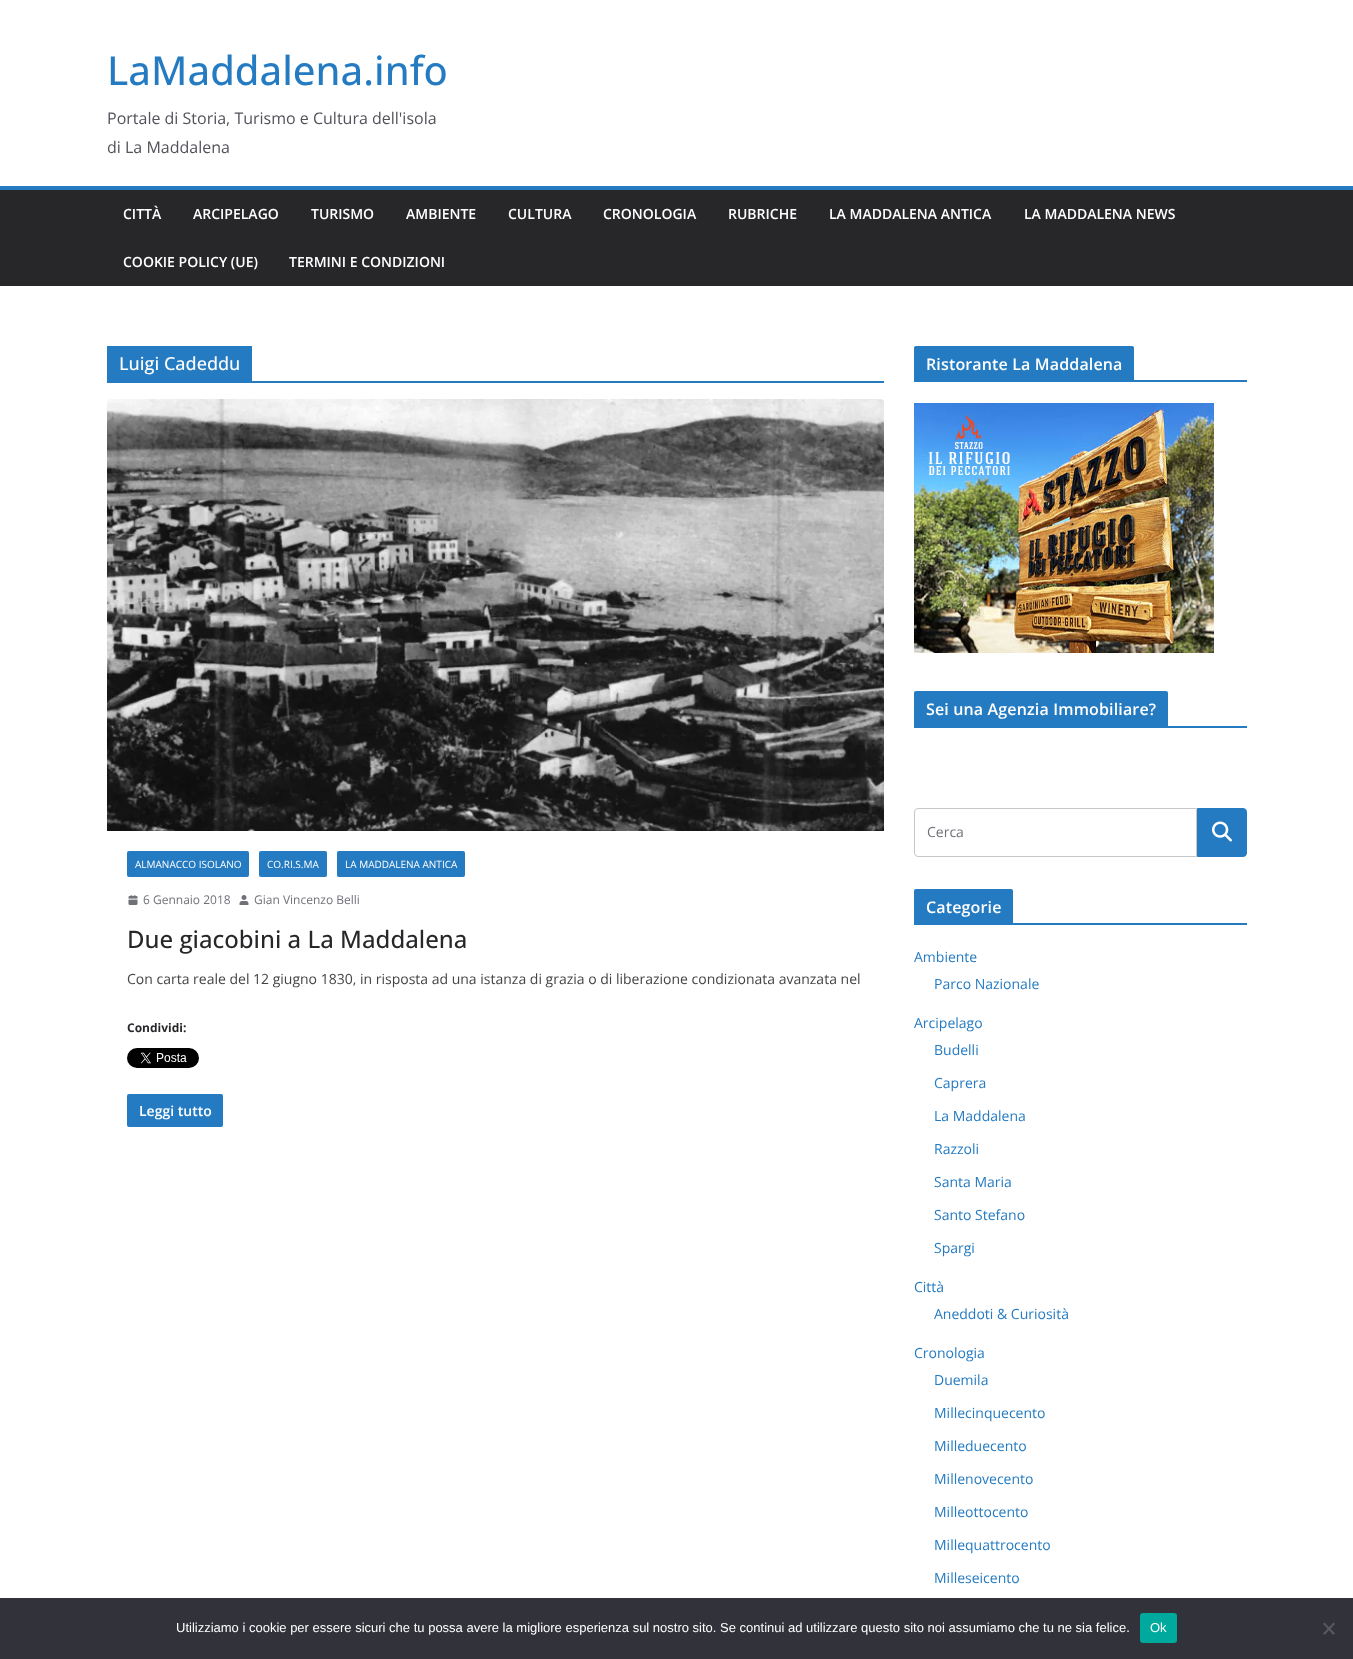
<!DOCTYPE html>
<meta charset="utf-8">
<style>body { margin: 0 } canvas { display: block }</style>
<canvas id="canvas" width="1353" height="1659"></canvas>
<script type="module">
  const canvas = document.getElementById("canvas");
  const ctx = canvas.getContext("2d");
  ctx.miterLimit = 4;
  ctx.fontKerning = "normal";
  async function loadImage(src) {
    const img = new Image();
    img.src = src;
    await img.decode();
    return img;
  }

  ctx.fillStyle = "#ffffff";
  ctx.fillRect(0, 0, 1353, 1659);
  ctx.font = "500 40px Open Sans";
  ctx.fillStyle = "#257bc1";
  ctx.fillText("LaMaddalena.info", 107, 85);
  ctx.font = "16px Open Sans";
  ctx.fillStyle = "#52525b";
  ctx.fillText("Portale di Storia, Turismo e Cultura dell'isola", 107, 124);
  ctx.fillText("di La Maddalena", 107, 153);
  ctx.fillStyle = "#27272a";
  ctx.fillRect(0, 190, 1353, 96);
  ctx.fillStyle = "#257bc1";
  ctx.fillRect(0, 186, 1353, 4);
  ctx.font = "600 14px Open Sans";
  ctx.fillStyle = "#ffffff";
  ctx.fillText("CITTÀ", 123, 219);
  ctx.fillText("ARCIPELAGO", 193, 219);
  ctx.fillText("TURISMO", 311, 219);
  ctx.fillText("AMBIENTE", 406, 219);
  ctx.fillText("CULTURA", 508, 219);
  ctx.fillText("CRONOLOGIA", 603, 219);
  ctx.fillText("RUBRICHE", 728, 219);
  ctx.fillText("LA MADDALENA ANTICA", 829, 219);
  ctx.fillText("LA MADDALENA NEWS", 1024, 219);
  ctx.fillText("COOKIE POLICY (UE)", 123, 267);
  ctx.fillText("TERMINI E CONDIZIONI", 289, 267);
  ctx.fillStyle = "#257bc1";
  ctx.fillRect(107, 381, 777, 2);
  ctx.fillRect(107, 346, 145, 35);
  ctx.font = "500 18px Open Sans";
  ctx.fillStyle = "#ffffff";
  ctx.fillText("Luigi Cadeddu", 119, 370);
  ctx.drawImage(await loadImage("img1.png"), 107, 399, 777, 432);
  ctx.fillStyle = "#257bc1";
  ctx.beginPath();
  ctx.roundRect(127, 851, 122, 26, 2);
  ctx.fill();
  ctx.font = "10px Open Sans";
  ctx.fillStyle = "#ffffff";
  ctx.fillText("ALMANACCO ISOLANO", 135, 868);
  ctx.fillStyle = "#257bc1";
  ctx.beginPath();
  ctx.roundRect(259, 851, 68, 26, 2);
  ctx.fill();
  ctx.fillStyle = "#ffffff";
  ctx.fillText("CO.RI.S.MA", 267, 868);
  ctx.fillStyle = "#257bc1";
  ctx.beginPath();
  ctx.roundRect(337, 851, 128, 26, 2);
  ctx.fill();
  ctx.fillStyle = "#ffffff";
  ctx.fillText("LA MADDALENA ANTICA", 345, 868);
  ctx.drawImage(await loadImage("img2.png"), 128, 895, 10, 10);
  ctx.font = "12px Open Sans";
  ctx.fillStyle = "#71717a";
  ctx.fillText("6 Gennaio 2018", 143, 904);
  ctx.drawImage(await loadImage("img3.png"), 239, 895, 10, 10);
  ctx.fillText("Gian Vincenzo Belli", 254, 904);
  ctx.font = "500 24px Open Sans";
  ctx.fillStyle = "#27272a";
  ctx.fillText("Due giacobini a La Maddalena", 127, 948);
  ctx.font = "14px Open Sans";
  ctx.fillStyle = "#444444";
  ctx.fillText("Con carta reale del 12 giugno 1830, in risposta ad una istanza di grazia o di liberazione condizionata avanzata nel", 127, 984);
  ctx.font = "bold 12px Open Sans";
  ctx.fillStyle = "#27272a";
  ctx.fillText("Condividi:", 127, 1032);
  ctx.drawImage(await loadImage("img4.png"), 127, 1048, 72, 20);
  ctx.fillStyle = "#257bc1";
  ctx.beginPath();
  ctx.roundRect(127, 1094, 96, 33, 2);
  ctx.fill();
  ctx.font = "600 14px Open Sans";
  ctx.fillStyle = "#ffffff";
  ctx.fillText("Leggi tutto", 139, 1116);
  ctx.fillStyle = "#257bc1";
  ctx.fillRect(914, 380, 333, 2);
  ctx.beginPath();
  ctx.roundRect(914, 346, 220, 34, [2, 2, 0, 0]);
  ctx.fill();
  ctx.letterSpacing = "0.15px";
  ctx.font = "600 16px Open Sans";
  ctx.fillStyle = "#ffffff";
  ctx.fillText("Ristorante La Maddalena", 926, 370);
  ctx.drawImage(await loadImage("img5.png"), 914, 403, 300, 250);
  ctx.fillStyle = "#257bc1";
  ctx.fillRect(914, 726, 333, 2);
  ctx.beginPath();
  ctx.roundRect(914, 691, 254, 35, [2, 2, 0, 0]);
  ctx.fill();
  ctx.fillStyle = "#ffffff";
  ctx.fillText("Sei una Agenzia Immobiliare?", 926, 715);
  ctx.beginPath();
  ctx.roundRect(914.5, 808.5, 282, 48, [3.5, 0, 0, 3.5]);
  ctx.strokeStyle = "#c7c7c7";
  ctx.stroke();
  ctx.letterSpacing = "0px";
  ctx.font = "14px Open Sans";
  ctx.fillStyle = "#71717a";
  ctx.fillText("Cerca", 927, 837);
  ctx.fillStyle = "#257bc1";
  ctx.beginPath();
  ctx.roundRect(1197.5, 808.5, 49, 48, [0, 3.5, 3.5, 0]);
  ctx.fill();
  ctx.strokeStyle = "#257bc1";
  ctx.stroke();
  ctx.drawImage(await loadImage("img6.png"), 1212, 821, 20, 21);
  ctx.fillRect(914, 923, 333, 2);
  ctx.beginPath();
  ctx.roundRect(914, 889, 99, 34, [2, 2, 0, 0]);
  ctx.fill();
  ctx.letterSpacing = "0.15px";
  ctx.font = "600 16px Open Sans";
  ctx.fillStyle = "#ffffff";
  ctx.fillText("Categorie", 926, 913);
  ctx.letterSpacing = "0px";
  ctx.font = "14px Open Sans";
  ctx.fillStyle = "#257bc1";
  ctx.fillText("Ambiente", 914, 962);
  ctx.fillText("Parco Nazionale", 934, 989);
  ctx.fillText("Arcipelago", 914, 1028);
  ctx.fillText("Budelli", 934, 1055);
  ctx.fillText("Caprera", 934, 1088);
  ctx.fillText("La Maddalena", 934, 1121);
  ctx.fillText("Razzoli", 934, 1154);
  ctx.fillText("Santa Maria", 934, 1187);
  ctx.fillText("Santo Stefano", 934, 1220);
  ctx.fillText("Spargi", 934, 1253);
  ctx.fillText("Città", 914, 1292);
  ctx.fillText("Aneddoti & Curiosità", 934, 1319);
  ctx.fillText("Cronologia", 914, 1358);
  ctx.fillText("Duemila", 934, 1385);
  ctx.fillText("Millecinquecento", 934, 1418);
  ctx.fillText("Milleduecento", 934, 1451);
  ctx.fillText("Millenovecento", 934, 1484);
  ctx.fillText("Milleottocento", 934, 1517);
  ctx.fillText("Millequattrocento", 934, 1550);
  ctx.fillText("Milleseicento", 934, 1583);
  ctx.fillStyle = "#32323a";
  ctx.fillRect(0, 1598, 1353, 61);
  ctx.font = "13px Liberation Sans";
  ctx.fillStyle = "#ffffff";
  ctx.fillText("Utilizziamo i cookie per essere sicuri che tu possa avere la migliore esperienza sul nostro sito. Se continui ad utilizzare questo sito noi assumiamo che tu ne sia felice.", 176, 1632);
  ctx.fillStyle = "#00a99d";
  ctx.beginPath();
  ctx.roundRect(1140, 1613, 37, 30, 3);
  ctx.fill();
  ctx.fillStyle = "#ffffff";
  ctx.fillText("Ok", 1150, 1632);
  ctx.fillStyle = "#59595d";
  ctx.beginPath();
  ctx.moveTo(1333.5, 1622.5);
  ctx.lineTo(1335, 1624);
  ctx.lineTo(1324.5, 1635);
  ctx.lineTo(1323, 1633.5);
  ctx.closePath();
  ctx.fill();
  ctx.beginPath();
  ctx.moveTo(1323, 1624);
  ctx.lineTo(1324.5, 1622.5);
  ctx.lineTo(1335, 1633.5);
  ctx.lineTo(1333.5, 1635);
  ctx.closePath();
  ctx.fill();
</script>
